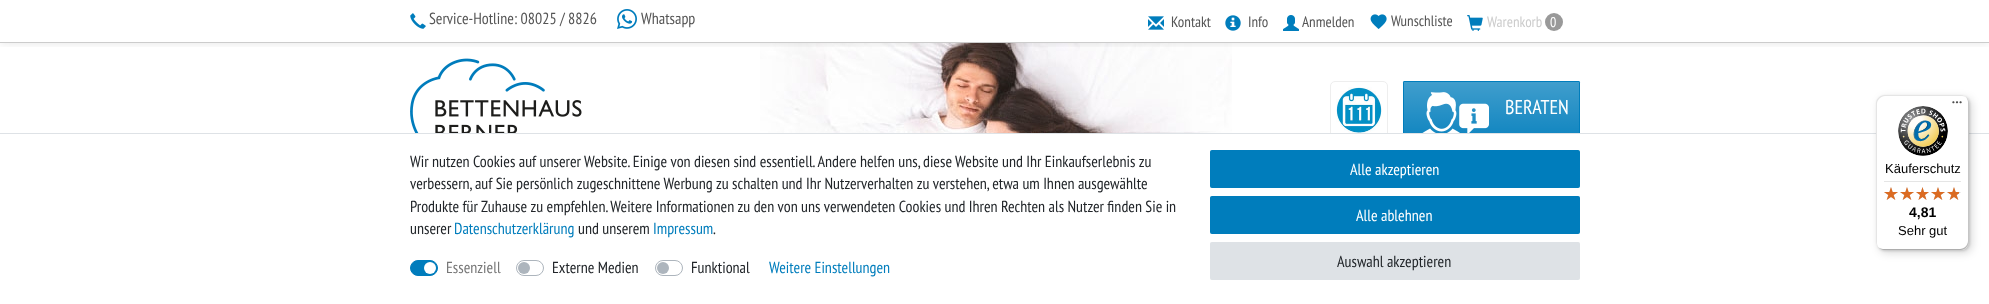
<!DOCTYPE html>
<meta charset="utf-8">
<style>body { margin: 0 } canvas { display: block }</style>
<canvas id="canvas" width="1989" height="304"></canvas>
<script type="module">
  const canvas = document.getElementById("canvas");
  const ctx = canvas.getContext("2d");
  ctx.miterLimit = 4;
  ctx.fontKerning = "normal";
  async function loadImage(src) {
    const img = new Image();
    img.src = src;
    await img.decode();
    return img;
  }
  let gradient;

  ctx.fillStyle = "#ffffff";
  ctx.fillRect(0, 0, 1989, 304);
  ctx.drawImage(await loadImage("img8.png"), 760, 43, 472, 90);
  ctx.drawImage(await loadImage("img9.png"), 410, 58, 172, 75);
  ctx.save();
  ctx.beginPath();
  ctx.rect(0, 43, 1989, 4);
  ctx.clip();
  ctx.fillStyle = "rgba(0, 0, 0, 0.1)";
  ctx.filter = "blur(5px)";
  ctx.beginPath();
  ctx.rect(0, 0, 1989, 43);
  ctx.fill();
  ctx.filter = "none";
  ctx.restore();
  ctx.fillStyle = "#cccccc";
  ctx.fillRect(0, 42, 1989, 1);
  ctx.drawImage(await loadImage("img1.png"), 410, 13, 16, 16);
  ctx.font = "16px PT Sans Narrow";
  ctx.fillStyle = "#555555";
  ctx.fillText("Service-Hotline: 08025 / 8826", 429, 24);
  ctx.drawImage(await loadImage("img2.png"), 617, 9, 20, 20);
  ctx.fillText("Whatsapp", 641, 24);
  ctx.drawImage(await loadImage("img3.png"), 1148, 16, 16, 14);
  ctx.font = "15px PT Sans Narrow";
  ctx.fillText("Kontakt", 1171, 27);
  ctx.drawImage(await loadImage("img4.png"), 1225, 15, 16, 16);
  ctx.fillText("Info", 1248, 27);
  ctx.drawImage(await loadImage("img5.png"), 1283, 15, 16, 16);
  ctx.fillText("Anmelden", 1302, 27);
  ctx.drawImage(await loadImage("img6.png"), 1370, 14, 17, 15);
  ctx.fillText("Wunschliste", 1391, 26);
  ctx.drawImage(await loadImage("img7.png"), 1467, 15, 16, 16);
  ctx.fillStyle = "#cccccc";
  ctx.fillText("Warenkorb", 1487, 27);
  ctx.fillStyle = "#999999";
  ctx.beginPath();
  ctx.arc(1554, 22, 9, 0, Math.PI * 2);
  ctx.fill();
  ctx.font = "14px PT Sans Narrow";
  ctx.fillStyle = "#ffffff";
  ctx.fillText("0", 1550, 27);
  ctx.beginPath();
  ctx.roundRect(1330.5, 81.5, 57, 76, 4.5);
  ctx.strokeStyle = "#eeeeee";
  ctx.stroke();
  ctx.drawImage(await loadImage("img10.png"), 1336, 87, 46, 46);
  ctx.fillStyle = "#007dbc";
  ctx.beginPath();
  ctx.roundRect(1403, 81, 177, 77, 1.5);
  ctx.fill();
  gradient = ctx.createLinearGradient(1492, 82, 1492, 157);
  gradient.addColorStop(0, "rgba(255, 255, 255, 0.25)");
  gradient.addColorStop(1, "rgba(255, 255, 255, 0)");
  ctx.fillStyle = gradient;
  ctx.fillRect(1403, 82, 177, 51);
  ctx.beginPath();
  ctx.roundRect(1403.5, 81.5, 176, 76, 1);
  ctx.strokeStyle = "#007dbc";
  ctx.stroke();
  ctx.drawImage(await loadImage("img11.png"), 1422, 92, 67, 41);
  ctx.font = "20px PT Sans Narrow";
  ctx.fillStyle = "#ffffff";
  ctx.fillText("BERATEN", 1505, 114);
  ctx.fillRect(1330, 134, 250, 24);
  ctx.fillStyle = "#dee2e6";
  ctx.fillRect(0, 133, 1989, 1);
  ctx.font = "16px PT Sans Narrow";
  ctx.fillStyle = "#212529";
  ctx.fillText("Wir nutzen Cookies auf unserer Website. Einige von diesen sind essentiell. Andere helfen uns, diese Website und Ihr Einkaufserlebnis zu", 410, 167);
  ctx.fillText("verbessern, auf Sie persönlich zugeschnittene Werbung zu schalten und Ihr Nutzerverhalten zu verstehen, etwa um Ihnen ausgewählte", 410, 189);
  ctx.fillText("Produkte für Zuhause zu empfehlen. Weitere Informationen zu den von uns verwendeten Cookies und Ihren Rechten als Nutzer finden Sie in", 410, 212);
  ctx.fillText("unserer", 410, 234);
  ctx.fillStyle = "#007dbc";
  ctx.fillText("Datenschutzerklärung", 454, 234);
  ctx.fillStyle = "#212529";
  ctx.fillText("und unserem", 578, 234);
  ctx.fillStyle = "#007dbc";
  ctx.fillText("Impressum", 653, 234);
  ctx.fillStyle = "#212529";
  ctx.fillText(".", 713, 234);
  ctx.fillStyle = "#007cbc";
  ctx.beginPath();
  ctx.roundRect(410.5, 260.5, 27, 15, 7.5);
  ctx.fill();
  ctx.strokeStyle = "#007cbc";
  ctx.stroke();
  ctx.fillStyle = "#767676";
  ctx.fillText("Essenziell", 446, 273);
  ctx.fillStyle = "#ffffff";
  ctx.beginPath();
  ctx.arc(430, 268, 6, 0, Math.PI * 2);
  ctx.fill();
  ctx.beginPath();
  ctx.roundRect(516.5, 260.5, 27, 15, 7.5);
  ctx.strokeStyle = "#adb5bd";
  ctx.stroke();
  ctx.fillStyle = "#212529";
  ctx.fillText("Externe Medien", 552, 273);
  ctx.fillStyle = "#adb5bd";
  ctx.beginPath();
  ctx.arc(524, 268, 6, 0, Math.PI * 2);
  ctx.fill();
  ctx.beginPath();
  ctx.roundRect(655.5, 260.5, 27, 15, 7.5);
  ctx.stroke();
  ctx.fillStyle = "#212529";
  ctx.fillText("Funktional", 691, 273);
  ctx.fillStyle = "#adb5bd";
  ctx.beginPath();
  ctx.arc(663, 268, 6, 0, Math.PI * 2);
  ctx.fill();
  ctx.fillStyle = "#007dbc";
  ctx.fillText("Weitere Einstellungen", 769, 273);
  ctx.beginPath();
  ctx.roundRect(1210.5, 150.5, 369, 37, 1);
  ctx.fill();
  ctx.strokeStyle = "#007dbc";
  ctx.stroke();
  ctx.fillStyle = "#ffffff";
  ctx.fillText("Alle akzeptieren", 1350, 175);
  ctx.fillStyle = "#007dbc";
  ctx.beginPath();
  ctx.roundRect(1210.5, 196.5, 369, 37, 1);
  ctx.fill();
  ctx.stroke();
  ctx.fillStyle = "#ffffff";
  ctx.fillText("Alle ablehnen", 1356, 221);
  ctx.fillStyle = "#dee2e6";
  ctx.beginPath();
  ctx.roundRect(1210.5, 242.5, 369, 37, 1);
  ctx.fill();
  ctx.strokeStyle = "#dee2e6";
  ctx.stroke();
  ctx.fillStyle = "#212529";
  ctx.fillText("Auswahl akzeptieren", 1337, 267);
  ctx.fillStyle = "rgba(0, 0, 0, 0.15)";
  ctx.filter = "blur(4px)";
  ctx.beginPath();
  ctx.roundRect(1879, 98, 93, 155, 8);
  ctx.fill();
  ctx.filter = "none";
  ctx.filter = "blur(1px)";
  ctx.beginPath();
  ctx.roundRect(1877, 96, 93, 155, 8);
  ctx.fill();
  ctx.filter = "none";
  ctx.fillStyle = "#ffffff";
  ctx.beginPath();
  ctx.roundRect(1876, 95, 93, 155, 8);
  ctx.fill();
  ctx.fillStyle = "#e5e5e5";
  ctx.beginPath();
  ctx.moveTo(1885, 96);
  ctx.lineTo(1962, 96);
  ctx.bezierCurveTo(1964, 96, 1966, 97, 1968, 99);
  ctx.bezierCurveTo(1966, 97, 1964, 95, 1961, 95);
  ctx.lineTo(1884, 95);
  ctx.bezierCurveTo(1880, 95, 1876, 99, 1876, 103);
  ctx.lineTo(1876, 242);
  ctx.bezierCurveTo(1876, 245, 1878, 247, 1880, 249);
  ctx.bezierCurveTo(1878, 247, 1877, 245, 1877, 243);
  ctx.lineTo(1877, 104);
  ctx.bezierCurveTo(1877, 100, 1881, 96, 1885, 96);
  ctx.closePath();
  ctx.fill();
  ctx.fillStyle = "#cccccc";
  ctx.beginPath();
  ctx.moveTo(1877, 246);
  ctx.bezierCurveTo(1879, 248, 1881, 250, 1884, 250);
  ctx.lineTo(1961, 250);
  ctx.bezierCurveTo(1965, 250, 1969, 246, 1969, 242);
  ctx.lineTo(1969, 103);
  ctx.bezierCurveTo(1969, 100, 1967, 98, 1965, 96);
  ctx.bezierCurveTo(1967, 98, 1968, 100, 1968, 102);
  ctx.lineTo(1968, 241);
  ctx.bezierCurveTo(1968, 245, 1964, 249, 1960, 249);
  ctx.lineTo(1883, 249);
  ctx.bezierCurveTo(1881, 249, 1879, 248, 1877, 246);
  ctx.closePath();
  ctx.fill();
  ctx.fillStyle = "rgba(50, 50, 50, 0.2)";
  ctx.beginPath();
  ctx.moveTo(1878, 247);
  ctx.bezierCurveTo(1879, 249, 1882, 250, 1884, 250);
  ctx.lineTo(1961, 250);
  ctx.bezierCurveTo(1965, 250, 1969, 246, 1969, 242);
  ctx.lineTo(1969, 103);
  ctx.bezierCurveTo(1969, 101, 1968, 98, 1966, 97);
  ctx.bezierCurveTo(1967, 98, 1968, 100, 1968, 102);
  ctx.lineTo(1968, 241);
  ctx.bezierCurveTo(1968, 246, 1965, 249, 1960, 249);
  ctx.lineTo(1883, 249);
  ctx.bezierCurveTo(1881, 249, 1879, 248, 1878, 247);
  ctx.closePath();
  ctx.fill();
  ctx.fillStyle = "rgba(255, 255, 255, 0.3)";
  ctx.beginPath();
  ctx.moveTo(1960, 250);
  ctx.lineTo(1961, 250);
  ctx.bezierCurveTo(1965, 250, 1969, 246, 1969, 242);
  ctx.lineTo(1969, 103);
  ctx.bezierCurveTo(1969, 101, 1968, 98, 1966, 97);
  ctx.bezierCurveTo(1967, 98, 1968, 100, 1968, 102);
  ctx.lineTo(1968, 242);
  ctx.bezierCurveTo(1968, 246, 1965, 250, 1960, 250);
  ctx.closePath();
  ctx.fill();
  ctx.drawImage(await loadImage("img12.png"), 1952, 101, 10, 3);
  ctx.drawImage(await loadImage("img13.png"), 1898, 106, 50, 50);
  ctx.font = "13px Liberation Sans";
  ctx.fillStyle = "#000000";
  ctx.fillText("Käuferschutz", 1885, 173);
  ctx.fillStyle = "#e5e5e5";
  ctx.fillRect(1884, 181, 77, 1);
  ctx.drawImage(await loadImage("img14.png"), 1884, 187, 14, 13);
  ctx.drawImage(await loadImage("img14.png"), 1900, 187, 14, 13);
  ctx.drawImage(await loadImage("img15.png"), 1916, 187, 13, 13);
  ctx.drawImage(await loadImage("img14.png"), 1931, 187, 14, 13);
  ctx.drawImage(await loadImage("img14.png"), 1947, 187, 14, 13);
  ctx.drawImage(await loadImage("img16.png"), 1884, 187, 14, 13);
  ctx.drawImage(await loadImage("img16.png"), 1900, 187, 14, 13);
  ctx.drawImage(await loadImage("img17.png"), 1916, 187, 13, 13);
  ctx.drawImage(await loadImage("img16.png"), 1931, 187, 14, 13);
  ctx.drawImage(await loadImage("img18.png"), 1947, 187, 12, 13);
  ctx.font = "bold 14px Liberation Sans";
  ctx.fillStyle = "#000000";
  ctx.fillText("4,81", 1909, 217);
  ctx.font = "13px Liberation Sans";
  ctx.fillText("Sehr gut", 1898, 235);
</script>
